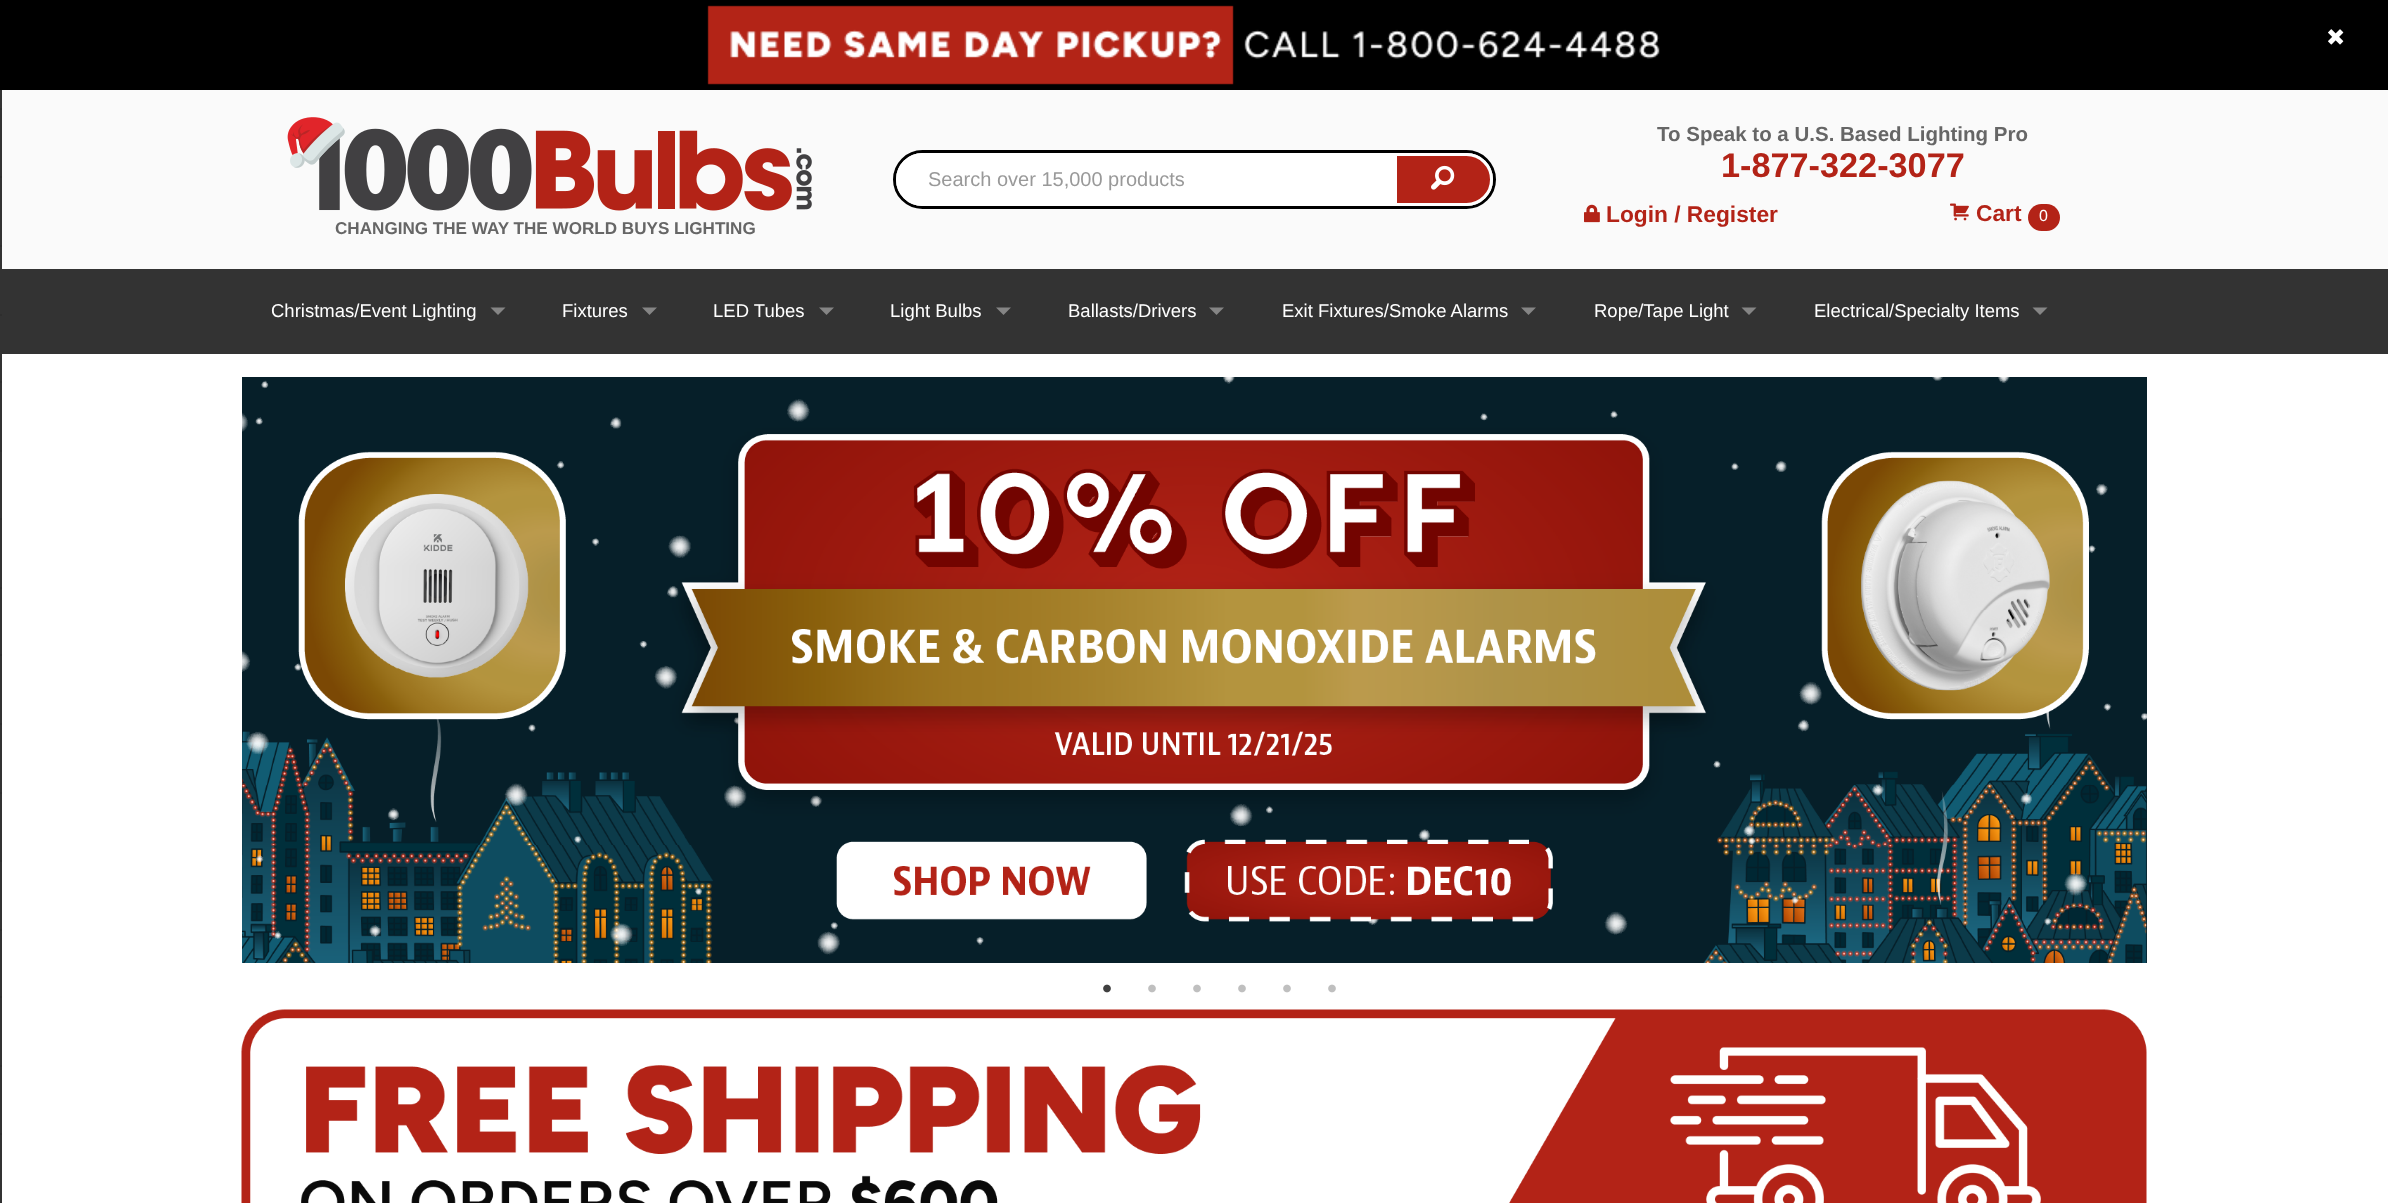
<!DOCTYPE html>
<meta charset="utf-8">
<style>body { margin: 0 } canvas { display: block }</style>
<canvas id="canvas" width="2388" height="1203"></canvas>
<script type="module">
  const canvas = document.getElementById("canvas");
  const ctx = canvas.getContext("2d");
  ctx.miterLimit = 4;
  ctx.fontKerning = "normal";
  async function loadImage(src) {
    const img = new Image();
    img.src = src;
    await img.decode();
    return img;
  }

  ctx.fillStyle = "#ffffff";
  ctx.fillRect(0, 0, 2388, 1203);
  ctx.fillStyle = "#000000";
  ctx.fillRect(0, 0, 2388, 90);
  ctx.drawImage(await loadImage("img1.png"), 707, 5, 953, 80);
  ctx.drawImage(await loadImage("img2.png"), 2328, 29, 16, 16);
  ctx.fillStyle = "#333333";
  ctx.fillRect(0, 90, 2, 1113);
  ctx.fillStyle = "#2e2e2e";
  ctx.fillRect(0, 108, 2, 2);
  ctx.fillRect(0, 176, 2, 2);
  ctx.fillRect(0, 245, 2, 2);
  ctx.fillRect(0, 314, 2, 2);
  ctx.fillRect(0, 381, 2, 2);
  ctx.fillRect(0, 450, 2, 2);
  ctx.fillRect(0, 518, 2, 2);
  ctx.fillRect(0, 587, 2, 2);
  ctx.fillRect(0, 654, 2, 2);
  ctx.fillRect(0, 723, 2, 2);
  ctx.fillRect(0, 792, 2, 2);
  ctx.fillRect(0, 860, 2, 2);
  ctx.fillRect(0, 929, 2, 2);
  ctx.fillRect(0, 996, 2, 2);
  ctx.fillRect(0, 1065, 2, 2);
  ctx.fillRect(0, 1133, 2, 2);
  ctx.fillRect(0, 1202, 2, 1);
  ctx.fillStyle = "#fafafa";
  ctx.fillRect(2, 90, 2386, 179);
  ctx.beginPath();
  ctx.roundRect(894.5, 151.5, 600, 56, 28);
  ctx.strokeStyle = "#000000";
  ctx.lineWidth = 3;
  ctx.stroke();
  ctx.fillStyle = "#ffffff";
  ctx.beginPath();
  ctx.roundRect(897.5, 154.5, 495, 50, [25, 0, 0, 25]);
  ctx.fill();
  ctx.strokeStyle = "#ffffff";
  ctx.stroke();
  ctx.font = "20px Liberation Sans";
  ctx.fillStyle = "#999999";
  ctx.fillText("Search over 15,000 products", 928, 186);
  ctx.fillStyle = "#b32317";
  ctx.beginPath();
  ctx.roundRect(1395.5, 154.5, 96, 50, [0, 25, 25, 0]);
  ctx.fill();
  ctx.stroke();
  ctx.drawImage(await loadImage("img3.png"), 1431, 165, 24, 25);
  ctx.font = "bold 20.5px Liberation Sans";
  ctx.fillStyle = "#666666";
  ctx.fillText("To Speak to a U.S. Based Lighting Pro", 1657, 141);
  ctx.font = "bold 34.25px Liberation Sans";
  ctx.fillStyle = "#b32317";
  ctx.fillText("1-877-322-3077", 1721, 177);
  ctx.drawImage(await loadImage("img4.png"), 1584, 204, 16, 19);
  ctx.font = "bold 22.75px Liberation Sans";
  ctx.fillText("Login / Register", 1606, 222);
  ctx.drawImage(await loadImage("img5.png"), 1950, 203, 19, 18);
  ctx.fillText("Cart", 1976, 221);
  ctx.beginPath();
  ctx.roundRect(2028, 204, 32, 27, 13.5);
  ctx.fill();
  ctx.font = "16px Liberation Sans";
  ctx.fillStyle = "#ffffff";
  ctx.fillText("0", 2039, 221);
  ctx.drawImage(await loadImage("img6.png"), 287, 117, 525, 94);
  ctx.font = "bold 17.1px Liberation Sans";
  ctx.fillStyle = "#666666";
  ctx.fillText("CHANGING THE WAY THE WORLD BUYS LIGHTING", 335, 234);
  ctx.fillStyle = "#333333";
  ctx.fillRect(2, 269, 2386, 85);
  ctx.font = "18.5px Liberation Sans";
  ctx.fillStyle = "#ffffff";
  ctx.fillText("Christmas/Event Lighting", 271, 317);
  ctx.fillStyle = "#858585";
  ctx.beginPath();
  ctx.moveTo(490.5, 307.5);
  ctx.lineTo(505.5, 307.5);
  ctx.lineTo(498, 315);
  ctx.closePath();
  ctx.fill();
  ctx.fillStyle = "#ffffff";
  ctx.fillText("Fixtures", 562, 317);
  ctx.fillStyle = "#858585";
  ctx.beginPath();
  ctx.moveTo(642, 307.5);
  ctx.lineTo(657, 307.5);
  ctx.lineTo(649.5, 315);
  ctx.closePath();
  ctx.fill();
  ctx.fillStyle = "#ffffff";
  ctx.fillText("LED Tubes", 713, 317);
  ctx.fillStyle = "#858585";
  ctx.beginPath();
  ctx.moveTo(819, 307.5);
  ctx.lineTo(834, 307.5);
  ctx.lineTo(826.5, 315);
  ctx.closePath();
  ctx.fill();
  ctx.fillStyle = "#ffffff";
  ctx.fillText("Light Bulbs", 890, 317);
  ctx.fillStyle = "#858585";
  ctx.beginPath();
  ctx.moveTo(996, 307.5);
  ctx.lineTo(1011, 307.5);
  ctx.lineTo(1003.5, 315);
  ctx.closePath();
  ctx.fill();
  ctx.fillStyle = "#ffffff";
  ctx.fillText("Ballasts/Drivers", 1068, 317);
  ctx.fillStyle = "#858585";
  ctx.beginPath();
  ctx.moveTo(1209, 307.5);
  ctx.lineTo(1224, 307.5);
  ctx.lineTo(1216.5, 315);
  ctx.closePath();
  ctx.fill();
  ctx.fillStyle = "#ffffff";
  ctx.fillText("Exit Fixtures/Smoke Alarms", 1282, 317);
  ctx.fillStyle = "#858585";
  ctx.beginPath();
  ctx.moveTo(1521, 307.5);
  ctx.lineTo(1536, 307.5);
  ctx.lineTo(1528.5, 315);
  ctx.closePath();
  ctx.fill();
  ctx.fillStyle = "#ffffff";
  ctx.fillText("Rope/Tape Light", 1594, 317);
  ctx.fillStyle = "#858585";
  ctx.beginPath();
  ctx.moveTo(1741.5, 307.5);
  ctx.lineTo(1756.5, 307.5);
  ctx.lineTo(1749, 315);
  ctx.closePath();
  ctx.fill();
  ctx.fillStyle = "#ffffff";
  ctx.fillText("Electrical/Specialty Items", 1814, 317);
  ctx.fillStyle = "#858585";
  ctx.beginPath();
  ctx.moveTo(2032.5, 307.5);
  ctx.lineTo(2047.5, 307.5);
  ctx.lineTo(2040, 315);
  ctx.closePath();
  ctx.fill();
  ctx.drawImage(await loadImage("img7.png"), 242, 377, 1905, 586);
  ctx.drawImage(await loadImage("img8.png"), 1103, 984, 8, 9);
  ctx.drawImage(await loadImage("img9.png"), 1148, 984, 8, 9);
  ctx.drawImage(await loadImage("img9.png"), 1193, 984, 8, 9);
  ctx.drawImage(await loadImage("img9.png"), 1238, 984, 8, 9);
  ctx.drawImage(await loadImage("img9.png"), 1283, 984, 8, 9);
  ctx.drawImage(await loadImage("img9.png"), 1328, 984, 8, 9);
  ctx.drawImage(await loadImage("img10.png"), 241, 1009, 1906, 194);
</script>
